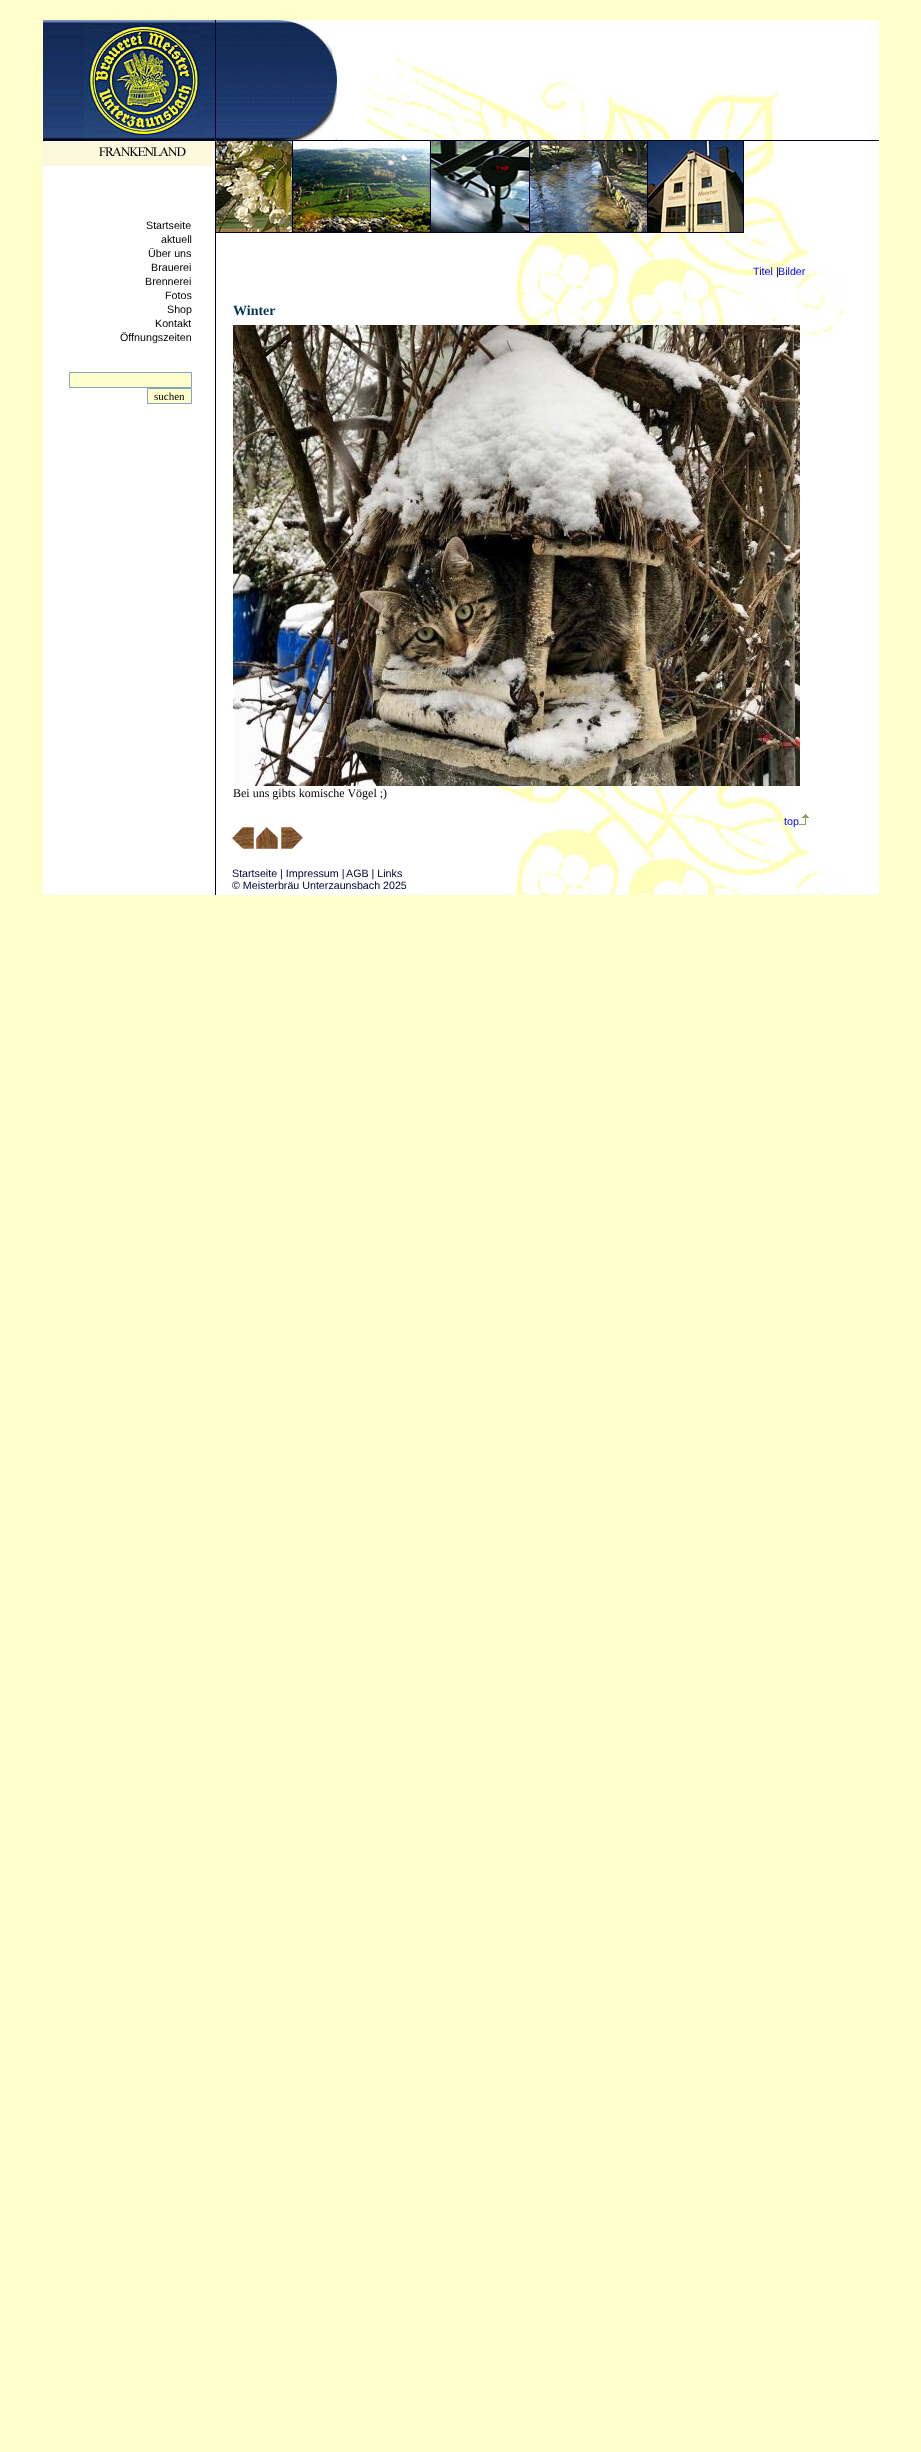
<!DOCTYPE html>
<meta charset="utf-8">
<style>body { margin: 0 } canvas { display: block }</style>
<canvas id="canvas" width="921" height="2452"></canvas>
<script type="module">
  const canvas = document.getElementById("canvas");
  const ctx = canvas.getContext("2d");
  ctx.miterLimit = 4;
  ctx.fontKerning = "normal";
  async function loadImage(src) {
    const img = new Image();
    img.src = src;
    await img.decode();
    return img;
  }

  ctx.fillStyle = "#ffffcc";
  ctx.fillRect(0, 0, 921, 2452);
  ctx.drawImage(await loadImage("img1.png"), 43, 20, 836, 875);
  ctx.drawImage(await loadImage("img2.png"), 43, 20, 172, 120);
  ctx.drawImage(await loadImage("img3.png"), 84, 20, 121, 120);
  ctx.fillStyle = "#000033";
  ctx.fillRect(215, 20, 1, 120);
  ctx.drawImage(await loadImage("img4.png"), 216, 20, 121, 120);
  ctx.fillRect(43, 140, 836, 1);
  ctx.drawImage(await loadImage("img5.png"), 43, 141, 172, 25);
  ctx.font = "10.7px Liberation Sans";
  ctx.fillStyle = "#000000";
  ctx.fillText("Startseite", 146, 229);
  ctx.fillText("aktuell", 161, 243);
  ctx.fillText("Über uns", 148, 257);
  ctx.fillText("Brauerei", 151, 271);
  ctx.fillText("Brennerei", 145, 285);
  ctx.fillText("Fotos", 165, 299);
  ctx.fillText("Shop", 167, 313);
  ctx.fillText("Kontakt", 155, 327);
  ctx.fillText("Öffnungszeiten", 120, 341);
  ctx.fillStyle = "#ffffcc";
  ctx.beginPath();
  ctx.rect(69.5, 372.5, 122, 15);
  ctx.fill();
  ctx.strokeStyle = "#86a4bb";
  ctx.stroke();
  ctx.beginPath();
  ctx.rect(147.5, 388.5, 44, 15);
  ctx.fill();
  ctx.stroke();
  ctx.font = "11px Liberation Serif";
  ctx.fillStyle = "#000000";
  ctx.fillText("suchen", 154, 400);
  ctx.fillStyle = "#000033";
  ctx.fillRect(215, 141, 1, 754);
  ctx.drawImage(await loadImage("img6.png"), 216, 141, 76, 91);
  ctx.fillRect(292, 141, 1, 91);
  ctx.drawImage(await loadImage("img7.png"), 293, 141, 137, 91);
  ctx.fillRect(430, 141, 1, 91);
  ctx.drawImage(await loadImage("img8.png"), 431, 141, 98, 91);
  ctx.fillRect(529, 141, 1, 91);
  ctx.drawImage(await loadImage("img9.png"), 530, 141, 117, 91);
  ctx.fillRect(647, 141, 1, 91);
  ctx.drawImage(await loadImage("img10.png"), 648, 141, 95, 91);
  ctx.fillRect(743, 141, 1, 91);
  ctx.fillRect(216, 232, 528, 1);
  ctx.font = "10.7px Liberation Sans";
  ctx.fillStyle = "#0000ee";
  ctx.fillText("Titel", 753, 275);
  ctx.fillStyle = "#000000";
  ctx.fillText("|", 776, 275);
  ctx.fillStyle = "#0000ee";
  ctx.fillText("Bilder", 778, 275);
  ctx.font = "bold 14px Liberation Serif";
  ctx.fillStyle = "#003355";
  ctx.fillText("Winter", 233, 315);
  ctx.drawImage(await loadImage("img11.png"), 233, 325, 567, 461);
  ctx.font = "12px Liberation Serif";
  ctx.fillStyle = "#000000";
  ctx.fillText("Bei uns gibts komische Vögel ;)", 233, 797);
  ctx.font = "10.7px Liberation Sans";
  ctx.fillStyle = "#0000ee";
  ctx.fillText("top", 784, 825);
  ctx.drawImage(await loadImage("img12.png"), 799, 814, 10, 11);
  ctx.drawImage(await loadImage("img13.png"), 232, 827, 22, 22);
  ctx.drawImage(await loadImage("img14.png"), 256, 827, 22, 22);
  ctx.drawImage(await loadImage("img15.png"), 281, 827, 22, 22);
  ctx.fillStyle = "#000033";
  ctx.fillText("Startseite | Impressum |", 232, 877);
  ctx.fillText("AGB | Links", 346, 877);
  ctx.fillText("© Meisterbräu Unterzaunsbach 2025", 232, 889);
</script>
